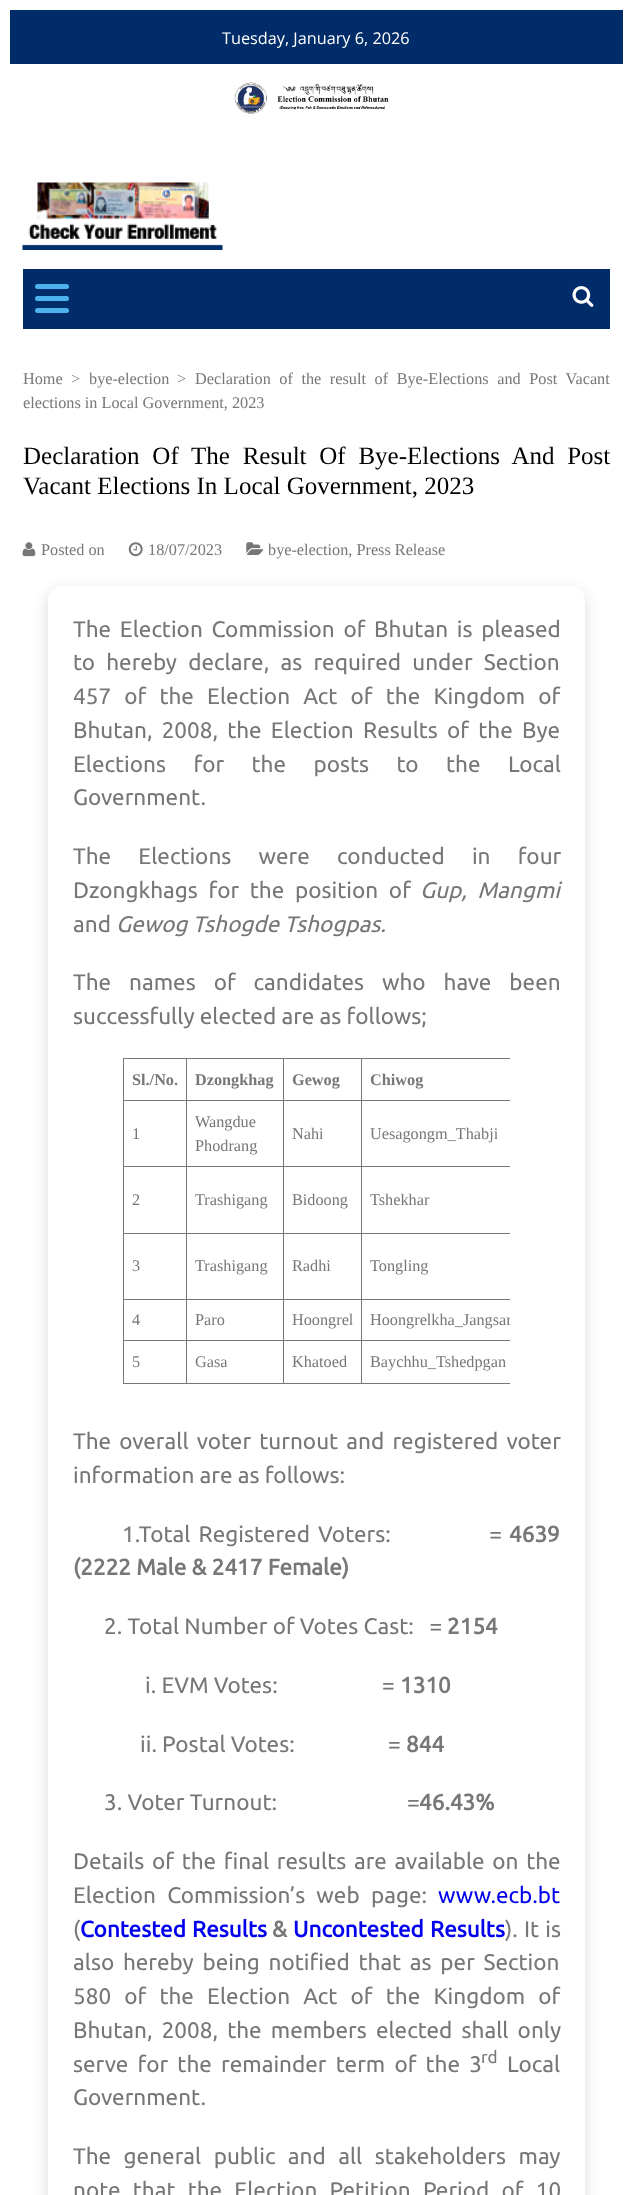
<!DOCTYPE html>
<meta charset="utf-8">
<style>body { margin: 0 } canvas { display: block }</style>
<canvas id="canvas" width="632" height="2195"></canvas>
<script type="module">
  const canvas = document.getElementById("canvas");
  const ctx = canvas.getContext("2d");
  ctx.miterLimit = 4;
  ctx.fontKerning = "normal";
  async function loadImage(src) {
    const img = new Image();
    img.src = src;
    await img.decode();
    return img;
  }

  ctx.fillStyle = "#ffffff";
  ctx.fillRect(0, 0, 632, 2195);
  ctx.fillStyle = "#002c69";
  ctx.fillRect(10, 10, 613, 54);
  ctx.font = "16.25px Open Sans";
  ctx.fillStyle = "#ffffff";
  ctx.fillText("Tuesday, January 6, 2026", 222, 44);
  ctx.drawImage(await loadImage("img1.png"), 234, 82, 155, 32);
  ctx.drawImage(await loadImage("img2.png"), 22, 182, 201, 68);
  ctx.fillStyle = "#002c69";
  ctx.fillRect(23, 269, 587, 60);
  ctx.fillStyle = "#4db2ec";
  ctx.beginPath();
  ctx.roundRect(35, 284, 34, 5, 2.5);
  ctx.fill();
  ctx.beginPath();
  ctx.roundRect(35, 296, 34, 5, 2.5);
  ctx.fill();
  ctx.beginPath();
  ctx.roundRect(35, 308, 34, 5, 2.5);
  ctx.fill();
  ctx.drawImage(await loadImage("img3.png"), 572, 286, 22, 21);
  ctx.font = "16.25px Liberation Serif";
  ctx.fillStyle = "#777777";
  ctx.fillText("Home", 23, 384);
  ctx.fillText(">", 71, 384);
  ctx.fillText("bye-election", 89, 384);
  ctx.fillText(">", 177, 384);
  ctx.wordSpacing = "4.5px";
  ctx.fillText("Declaration of the result of Bye-Elections and Post Vacant", 195, 384);
  ctx.wordSpacing = "0px";
  ctx.fillText("elections in Local Government, 2023", 23, 408);
  ctx.wordSpacing = "6.5px";
  ctx.font = "25px Liberation Serif";
  ctx.fillStyle = "#000000";
  ctx.fillText("Declaration Of The Result Of Bye-Elections And Post", 23, 464);
  ctx.wordSpacing = "0px";
  ctx.fillText("Vacant Elections In Local Government, 2023", 23, 494);
  ctx.drawImage(await loadImage("img4.png"), 22, 542, 14, 15);
  ctx.font = "16.25px Liberation Serif";
  ctx.fillStyle = "#777777";
  ctx.fillText("Posted on", 41, 555);
  ctx.drawImage(await loadImage("img5.png"), 128, 542, 15, 15);
  ctx.fillText("18/07/2023", 148, 555);
  ctx.drawImage(await loadImage("img6.png"), 246, 542, 18, 13);
  ctx.fillText("bye-election, Press Release", 268, 555);
  ctx.save();
  ctx.beginPath();
  ctx.moveTo(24, 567);
  ctx.lineTo(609, 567);
  ctx.lineTo(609, 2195);
  ctx.lineTo(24, 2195);
  ctx.closePath();
  ctx.moveTo(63, 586);
  ctx.lineTo(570, 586);
  ctx.bezierCurveTo(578.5, 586, 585, 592.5, 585, 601);
  ctx.lineTo(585, 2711);
  ctx.bezierCurveTo(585, 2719.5, 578.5, 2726, 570, 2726);
  ctx.lineTo(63, 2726);
  ctx.bezierCurveTo(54.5, 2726, 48, 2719.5, 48, 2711);
  ctx.lineTo(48, 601);
  ctx.bezierCurveTo(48, 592.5, 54.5, 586, 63, 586);
  ctx.closePath();
  ctx.clip("evenodd");
  ctx.fillStyle = "rgba(0, 0, 0, 0.15)";
  ctx.filter = "blur(7.5px)";
  ctx.beginPath();
  ctx.roundRect(48, 591, 537, 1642, 15);
  ctx.fill();
  ctx.filter = "none";
  ctx.restore();
  ctx.wordSpacing = "3.5px";
  ctx.font = "22.5px Ubuntu";
  ctx.fillText("The Election Commission of Bhutan is pleased", 73, 637);
  ctx.wordSpacing = "6px";
  ctx.fillText("to hereby declare, as required under Section", 73, 670);
  ctx.wordSpacing = "8px";
  ctx.fillText("457 of the Election Act of the Kingdom of", 73, 704);
  ctx.wordSpacing = "4px";
  ctx.fillText("Bhutan, 2008, the Election Results of the Bye", 73, 738);
  ctx.wordSpacing = "22.25px";
  ctx.fillText("Elections for the posts to the Local", 73, 772);
  ctx.wordSpacing = "0px";
  ctx.fillText("Government.", 73, 805);
  ctx.wordSpacing = "22px";
  ctx.fillText("The Elections were conducted in four", 73, 864);
  ctx.wordSpacing = "5.5px";
  ctx.fillText("Dzongkhags for the position of", 73, 898);
  ctx.font = "italic 22.5px Ubuntu";
  ctx.fillText("Gup, Mangmi", 420, 898);
  ctx.wordSpacing = "0px";
  ctx.font = "22.5px Ubuntu";
  ctx.fillText("and", 73, 932);
  ctx.font = "italic 22.5px Ubuntu";
  ctx.fillText("Gewog Tshogde Tshogpas.", 116, 932);
  ctx.wordSpacing = "12.75px";
  ctx.font = "22.5px Ubuntu";
  ctx.fillText("The names of candidates who have been", 73, 990);
  ctx.wordSpacing = "0px";
  ctx.fillText("successfully elected are as follows;", 73, 1024);
  ctx.fillRect(361, 1058, 149, 1);
  ctx.fillRect(361, 1100, 149, 1);
  ctx.fillRect(361, 1166, 149, 1);
  ctx.fillRect(361, 1233, 149, 1);
  ctx.fillRect(361, 1299, 149, 1);
  ctx.fillRect(361, 1340, 149, 1);
  ctx.fillRect(361, 1383, 149, 1);
  ctx.fillRect(361, 1340, 1, 44);
  ctx.fillRect(283, 1340, 80, 1);
  ctx.fillRect(361, 1299, 1, 42);
  ctx.fillRect(283, 1299, 80, 1);
  ctx.fillRect(361, 1233, 1, 67);
  ctx.fillRect(283, 1233, 80, 1);
  ctx.fillRect(361, 1166, 1, 68);
  ctx.fillRect(283, 1166, 80, 1);
  ctx.fillRect(361, 1100, 1, 68);
  ctx.fillRect(283, 1100, 80, 1);
  ctx.fillRect(361, 1058, 1, 43);
  ctx.fillRect(283, 1058, 80, 1);
  ctx.fillRect(283, 1383, 80, 1);
  ctx.fillRect(283, 1340, 1, 44);
  ctx.fillRect(186, 1340, 98, 1);
  ctx.fillRect(283, 1299, 1, 42);
  ctx.fillRect(186, 1299, 98, 1);
  ctx.fillRect(283, 1233, 1, 67);
  ctx.fillRect(186, 1233, 98, 1);
  ctx.fillRect(283, 1166, 1, 68);
  ctx.fillRect(186, 1166, 98, 1);
  ctx.fillRect(283, 1100, 1, 68);
  ctx.fillRect(186, 1100, 98, 1);
  ctx.fillRect(283, 1058, 1, 43);
  ctx.fillRect(186, 1058, 98, 1);
  ctx.fillRect(186, 1383, 98, 1);
  ctx.fillRect(186, 1340, 1, 44);
  ctx.fillRect(123, 1340, 65, 1);
  ctx.fillRect(186, 1299, 1, 42);
  ctx.fillRect(123, 1299, 65, 1);
  ctx.fillRect(186, 1233, 1, 67);
  ctx.fillRect(123, 1233, 65, 1);
  ctx.fillRect(186, 1166, 1, 68);
  ctx.fillRect(123, 1166, 65, 1);
  ctx.fillRect(186, 1100, 1, 68);
  ctx.fillRect(123, 1100, 65, 1);
  ctx.fillRect(186, 1058, 1, 43);
  ctx.fillRect(123, 1058, 65, 1);
  ctx.fillRect(123, 1383, 65, 1);
  ctx.fillRect(123, 1340, 1, 44);
  ctx.fillRect(123, 1299, 1, 42);
  ctx.fillRect(123, 1233, 1, 67);
  ctx.fillRect(123, 1166, 1, 68);
  ctx.fillRect(123, 1100, 1, 68);
  ctx.fillRect(123, 1058, 1, 43);
  ctx.font = "bold 16.25px Liberation Serif";
  ctx.fillText("Sl./No.", 132, 1085);
  ctx.fillText("Dzongkhag", 195, 1085);
  ctx.fillText("Gewog", 292, 1085);
  ctx.fillText("Chiwog", 370, 1085);
  ctx.font = "16.25px Liberation Serif";
  ctx.fillText("1", 132, 1139);
  ctx.fillText("Wangdue", 195, 1127);
  ctx.fillText("Phodrang", 195, 1151);
  ctx.fillText("Nahi", 292, 1139);
  ctx.fillText("Uesagongm_Thabji", 370, 1139);
  ctx.fillText("2", 132, 1205);
  ctx.fillText("Trashigang", 195, 1205);
  ctx.fillText("Bidoong", 292, 1205);
  ctx.fillText("Tshekhar", 370, 1205);
  ctx.fillText("3", 132, 1271);
  ctx.fillText("Trashigang", 195, 1271);
  ctx.fillText("Radhi", 292, 1271);
  ctx.fillText("Tongling", 370, 1271);
  ctx.fillText("4", 132, 1325);
  ctx.fillText("Paro", 195, 1325);
  ctx.fillText("Hoongrel", 292, 1325);
  ctx.save();
  ctx.beginPath();
  ctx.rect(123, 1058, 387, 350);
  ctx.clip();
  ctx.fillText("Hoongrelkha_Jangsar", 370, 1325);
  ctx.restore();
  ctx.fillText("5", 132, 1367);
  ctx.fillText("Gasa", 195, 1367);
  ctx.fillText("Khatoed", 292, 1367);
  ctx.fillText("Baychhu_Tshedpgan", 370, 1367);
  ctx.wordSpacing = "3px";
  ctx.font = "22.5px Ubuntu";
  ctx.fillText("The overall voter turnout and registered voter", 73, 1449);
  ctx.wordSpacing = "0px";
  ctx.fillText("information are as follows:", 73, 1483);
  ctx.wordSpacing = "3px";
  ctx.fillText("1.Total Registered Voters:            =", 122, 1542);
  ctx.wordSpacing = "0px";
  ctx.font = "bold 22.5px Ubuntu";
  ctx.fillText("4639", 509, 1542);
  ctx.fillText("(2222 Male & 2417 Female)", 73, 1575);
  ctx.font = "22.5px Ubuntu";
  ctx.fillText("2. Total Number of Votes Cast:   =", 104, 1634);
  ctx.font = "bold 22.5px Ubuntu";
  ctx.fillText("2154", 447, 1634);
  ctx.font = "22.5px Ubuntu";
  ctx.fillText("i. EVM Votes:", 145, 1693);
  ctx.fillText("=", 382, 1693);
  ctx.font = "bold 22.5px Ubuntu";
  ctx.fillText("1310", 400, 1693);
  ctx.font = "22.5px Ubuntu";
  ctx.fillText("ii. Postal Votes:", 140, 1752);
  ctx.fillText("=", 388, 1752);
  ctx.font = "bold 22.5px Ubuntu";
  ctx.fillText("844", 406, 1752);
  ctx.font = "22.5px Ubuntu";
  ctx.fillText("3. Voter Turnout:                         =", 104, 1810);
  ctx.font = "bold 22.5px Ubuntu";
  ctx.fillText("46.43%", 419, 1810);
  ctx.wordSpacing = "2.5px";
  ctx.font = "22.5px Ubuntu";
  ctx.fillText("Details of the final results are available on the", 73, 1869);
  ctx.wordSpacing = "6px";
  ctx.fillText("Election Commission’s web page:", 73, 1903);
  ctx.wordSpacing = "0px";
  ctx.fillStyle = "#0000ee";
  ctx.fillText("www.ecb.bt", 438, 1903);
  ctx.fillStyle = "#777777";
  ctx.fillText("(", 73, 1937);
  ctx.wordSpacing = "1px";
  ctx.font = "bold 22.5px Ubuntu";
  ctx.fillStyle = "#0000ee";
  ctx.fillText("Contested Results", 80, 1937);
  ctx.wordSpacing = "0px";
  ctx.fillStyle = "#777777";
  ctx.fillText("&", 272, 1937);
  ctx.wordSpacing = "1px";
  ctx.fillStyle = "#0000ee";
  ctx.fillText("Uncontested Results", 293, 1937);
  ctx.font = "22.5px Ubuntu";
  ctx.fillStyle = "#777777";
  ctx.fillText("). It is", 505, 1937);
  ctx.wordSpacing = "3.5px";
  ctx.fillText("also hereby being notified that as per Section", 73, 1970);
  ctx.wordSpacing = "8px";
  ctx.fillText("580 of the Election Act of the Kingdom of", 73, 2004);
  ctx.wordSpacing = "4px";
  ctx.fillText("Bhutan, 2008, the members elected shall only", 73, 2038);
  ctx.fillText("serve for the remainder term of the 3", 73, 2072);
  ctx.wordSpacing = "0px";
  ctx.font = "17px Ubuntu";
  ctx.fillText("rd", 481, 2063);
  ctx.font = "22.5px Ubuntu";
  ctx.fillText("Local", 507, 2072);
  ctx.fillText("Government.", 73, 2105);
  ctx.wordSpacing = "7.25px";
  ctx.fillText("The general public and all stakeholders may", 73, 2164);
  ctx.wordSpacing = "7px";
  ctx.fillText("note that the Election Petition Period of 10", 73, 2198);
</script>
